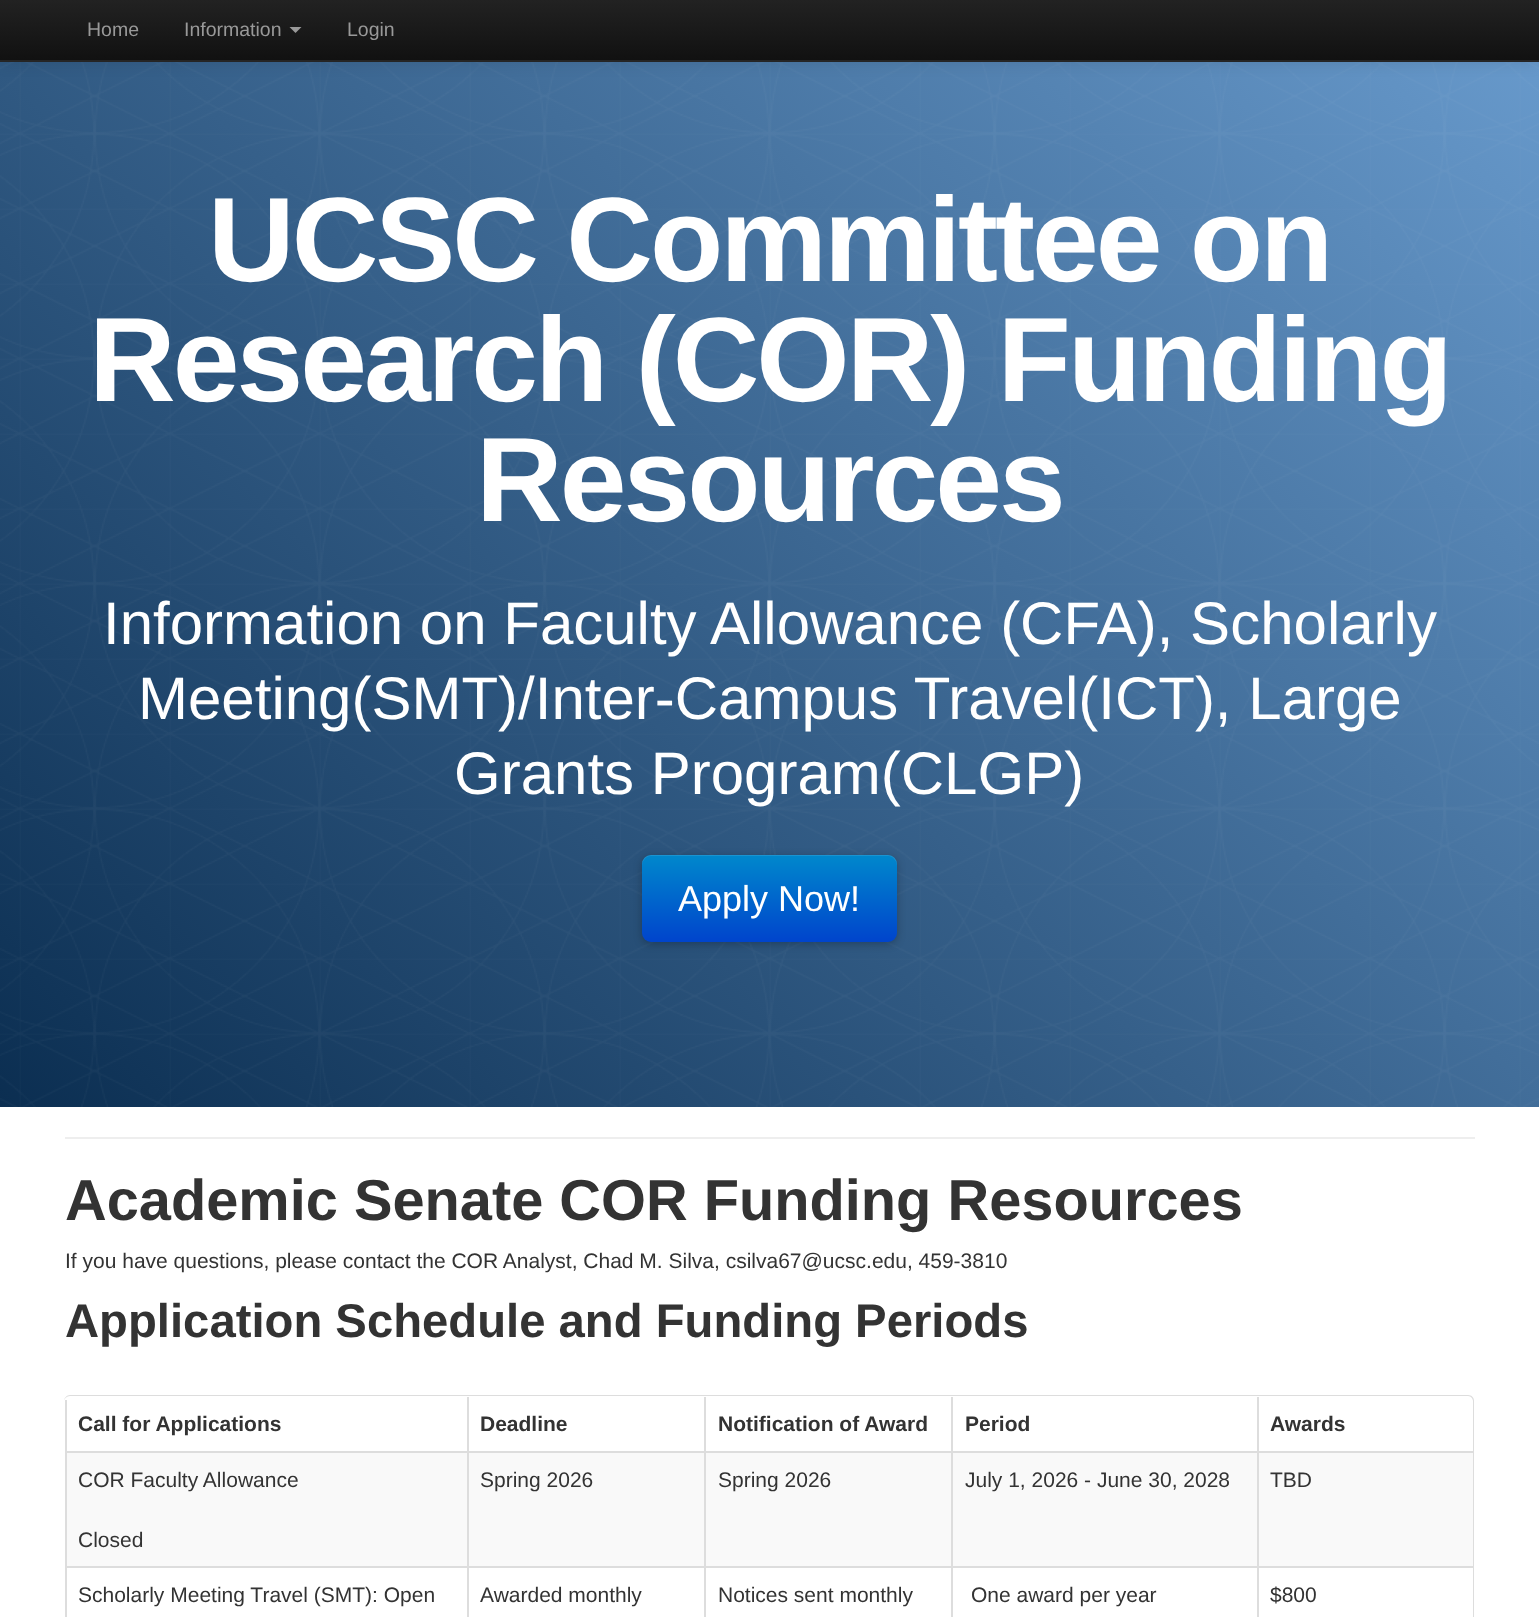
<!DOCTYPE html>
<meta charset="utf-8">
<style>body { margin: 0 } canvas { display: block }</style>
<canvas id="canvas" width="1539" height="1617"></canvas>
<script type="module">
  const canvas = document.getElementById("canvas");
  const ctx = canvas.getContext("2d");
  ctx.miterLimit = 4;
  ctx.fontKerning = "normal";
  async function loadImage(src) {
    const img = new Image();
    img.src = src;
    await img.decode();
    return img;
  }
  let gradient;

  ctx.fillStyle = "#ffffff";
  ctx.fillRect(0, 0, 1539, 1617);
  gradient = ctx.createLinearGradient(123, 1230, 1416, -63);
  gradient.addColorStop(0, "#0b2e51");
  gradient.addColorStop(1, "#6799cb");
  ctx.fillStyle = gradient;
  ctx.fillRect(0, 62, 1539, 1045);
  ctx.drawImage(await loadImage("img1.png"), 0, 62, 1539, 1045);
  ctx.fillStyle = "rgba(0, 0, 0, 0.1)";
  ctx.filter = "blur(7.5px)";
  ctx.beginPath();
  ctx.rect(0, 2, 1539, 61);
  ctx.fill();
  ctx.filter = "none";
  gradient = ctx.createLinearGradient(770, 0, 770, 60);
  gradient.addColorStop(0, "#222222");
  gradient.addColorStop(1, "#111111");
  ctx.fillStyle = gradient;
  ctx.fillRect(0, 0, 1539, 60);
  ctx.fillStyle = "#252525";
  ctx.fillRect(0, 60, 1539, 2);
  ctx.font = "19.5px Liberation Sans";
  ctx.fillStyle = "#999999";
  ctx.fillText("Home", 87, 36);
  ctx.fillText("Information", 184, 36);
  ctx.beginPath();
  ctx.moveTo(289.5, 27);
  ctx.lineTo(301.5, 27);
  ctx.lineTo(295.5, 33);
  ctx.closePath();
  ctx.fill();
  ctx.fillText("Login", 347, 36);
  ctx.letterSpacing = "-3px";
  ctx.font = "bold 120px Liberation Sans";
  ctx.fillStyle = "#ffffff";
  ctx.fillText("UCSC Committee on", 208, 281);
  ctx.fillText("Research (COR) Funding", 89, 401);
  ctx.fillText("Resources", 476, 521);
  ctx.letterSpacing = "0px";
  ctx.font = "60px Liberation Sans";
  ctx.fillText("Information on Faculty Allowance (CFA), Scholarly", 103, 644);
  ctx.fillText("Meeting(SMT)/Inter-Campus Travel(ICT), Large", 138, 719);
  ctx.fillText("Grants Program(CLGP)", 454, 794);
  ctx.fillStyle = "rgba(0, 0, 0, 0.25)";
  ctx.filter = "blur(4px)";
  ctx.beginPath();
  ctx.roundRect(642, 857, 255, 87, 9);
  ctx.fill();
  ctx.filter = "none";
  gradient = ctx.createLinearGradient(770, 855, 770, 942);
  gradient.addColorStop(0, "#0088cc");
  gradient.addColorStop(1, "#0044cc");
  ctx.fillStyle = gradient;
  ctx.beginPath();
  ctx.roundRect(642, 855, 255, 87, 9);
  ctx.fill();
  ctx.fillStyle = "rgba(255, 255, 255, 0.1)";
  ctx.beginPath();
  ctx.moveTo(651, 856);
  ctx.lineTo(888, 856);
  ctx.bezierCurveTo(893, 856, 897, 861, 897, 866);
  ctx.lineTo(897, 864);
  ctx.bezierCurveTo(897, 859, 893, 855, 888, 855);
  ctx.lineTo(651, 855);
  ctx.bezierCurveTo(646, 855, 642, 859, 642, 864);
  ctx.lineTo(642, 866);
  ctx.bezierCurveTo(642, 861, 646, 856, 651, 856);
  ctx.closePath();
  ctx.fill();
  ctx.font = "36px Liberation Sans";
  ctx.fillStyle = "#ffffff";
  ctx.fillText("Apply Now!", 678, 911);
  ctx.fillStyle = "#eeeeee";
  ctx.fillRect(65, 1137, 1410, 2);
  ctx.font = "bold 57.75px Liberation Sans";
  ctx.fillStyle = "#333333";
  ctx.fillText("Academic Senate COR Funding Resources", 65, 1220);
  ctx.font = "21px Liberation Sans";
  ctx.fillText("If you have questions, please contact the COR Analyst, Chad M. Silva, csilva67@ucsc.edu, 459-3810", 65, 1268);
  ctx.font = "bold 47.25px Liberation Sans";
  ctx.fillText("Application Schedule and Funding Periods", 65, 1337);
  ctx.fillStyle = "#dddddd";
  ctx.beginPath();
  ctx.moveTo(70, 1395);
  ctx.lineTo(1468, 1395);
  ctx.bezierCurveTo(1472, 1395, 1474, 1398, 1474, 1401);
  ctx.lineTo(1474, 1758);
  ctx.bezierCurveTo(1474, 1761, 1472, 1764, 1468, 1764);
  ctx.lineTo(70, 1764);
  ctx.bezierCurveTo(67, 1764, 64, 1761, 64, 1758);
  ctx.lineTo(64, 1401);
  ctx.bezierCurveTo(64, 1398, 67, 1395, 70, 1395);
  ctx.closePath();
  ctx.moveTo(70, 1396);
  ctx.lineTo(1468, 1396);
  ctx.bezierCurveTo(1471, 1396, 1473, 1399, 1473, 1401);
  ctx.lineTo(1473, 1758);
  ctx.bezierCurveTo(1473, 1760, 1471, 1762, 1468, 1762);
  ctx.lineTo(70, 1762);
  ctx.bezierCurveTo(67, 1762, 64, 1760, 64, 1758);
  ctx.lineTo(64, 1401);
  ctx.bezierCurveTo(64, 1399, 67, 1396, 70, 1396);
  ctx.closePath();
  ctx.fill("evenodd");
  ctx.fillRect(65, 1400, 2, 51);
  ctx.font = "bold 21px Liberation Sans";
  ctx.fillStyle = "#333333";
  ctx.fillText("Call for Applications", 78, 1431);
  ctx.fillStyle = "#dddddd";
  ctx.fillRect(467, 1397, 2, 54);
  ctx.fillStyle = "#333333";
  ctx.fillText("Deadline", 480, 1431);
  ctx.fillStyle = "#dddddd";
  ctx.fillRect(704, 1397, 2, 54);
  ctx.fillStyle = "#333333";
  ctx.fillText("Notification of Award", 718, 1431);
  ctx.fillStyle = "#dddddd";
  ctx.fillRect(951, 1397, 2, 54);
  ctx.fillStyle = "#333333";
  ctx.fillText("Period", 965, 1431);
  ctx.fillStyle = "#dddddd";
  ctx.fillRect(1257, 1397, 2, 54);
  ctx.fillStyle = "#333333";
  ctx.fillText("Awards", 1270, 1431);
  ctx.fillStyle = "#f9f9f9";
  ctx.fillRect(67, 1453, 400, 113);
  ctx.fillStyle = "#dddddd";
  ctx.fillRect(65, 1451, 1408, 2);
  ctx.fillRect(65, 1451, 2, 115);
  ctx.font = "21px Liberation Sans";
  ctx.fillStyle = "#333333";
  ctx.fillText("COR Faculty Allowance", 78, 1487);
  ctx.fillText("Closed", 78, 1547);
  ctx.fillStyle = "#f9f9f9";
  ctx.fillRect(469, 1453, 235, 113);
  ctx.fillStyle = "#dddddd";
  ctx.fillRect(467, 1451, 2, 115);
  ctx.fillStyle = "#333333";
  ctx.fillText("Spring 2026", 480, 1487);
  ctx.fillStyle = "#f9f9f9";
  ctx.fillRect(706, 1453, 245, 113);
  ctx.fillStyle = "#dddddd";
  ctx.fillRect(704, 1451, 2, 115);
  ctx.fillStyle = "#333333";
  ctx.fillText("Spring 2026", 718, 1487);
  ctx.fillStyle = "#f9f9f9";
  ctx.fillRect(953, 1453, 304, 113);
  ctx.fillStyle = "#dddddd";
  ctx.fillRect(951, 1451, 2, 115);
  ctx.fillStyle = "#333333";
  ctx.fillText("July 1, 2026 - June 30, 2028", 965, 1487);
  ctx.fillStyle = "#f9f9f9";
  ctx.fillRect(1259, 1453, 214, 113);
  ctx.fillStyle = "#dddddd";
  ctx.fillRect(1257, 1451, 2, 115);
  ctx.fillStyle = "#333333";
  ctx.fillText("TBD", 1270, 1487);
  ctx.fillStyle = "#dddddd";
  ctx.fillRect(65, 1566, 1408, 2);
  ctx.fillRect(65, 1566, 2, 51);
  ctx.fillStyle = "#333333";
  ctx.fillText("Scholarly Meeting Travel (SMT): Open", 78, 1602);
  ctx.fillStyle = "#dddddd";
  ctx.fillRect(467, 1566, 2, 51);
  ctx.fillStyle = "#333333";
  ctx.fillText("Awarded monthly", 480, 1602);
  ctx.fillStyle = "#dddddd";
  ctx.fillRect(704, 1566, 2, 51);
  ctx.fillStyle = "#333333";
  ctx.fillText("Notices sent monthly", 718, 1602);
  ctx.fillStyle = "#dddddd";
  ctx.fillRect(951, 1566, 2, 51);
  ctx.fillStyle = "#333333";
  ctx.fillText("One award per year", 971, 1602);
  ctx.fillStyle = "#dddddd";
  ctx.fillRect(1257, 1566, 2, 51);
  ctx.fillStyle = "#333333";
  ctx.fillText("$800", 1270, 1602);
</script>
